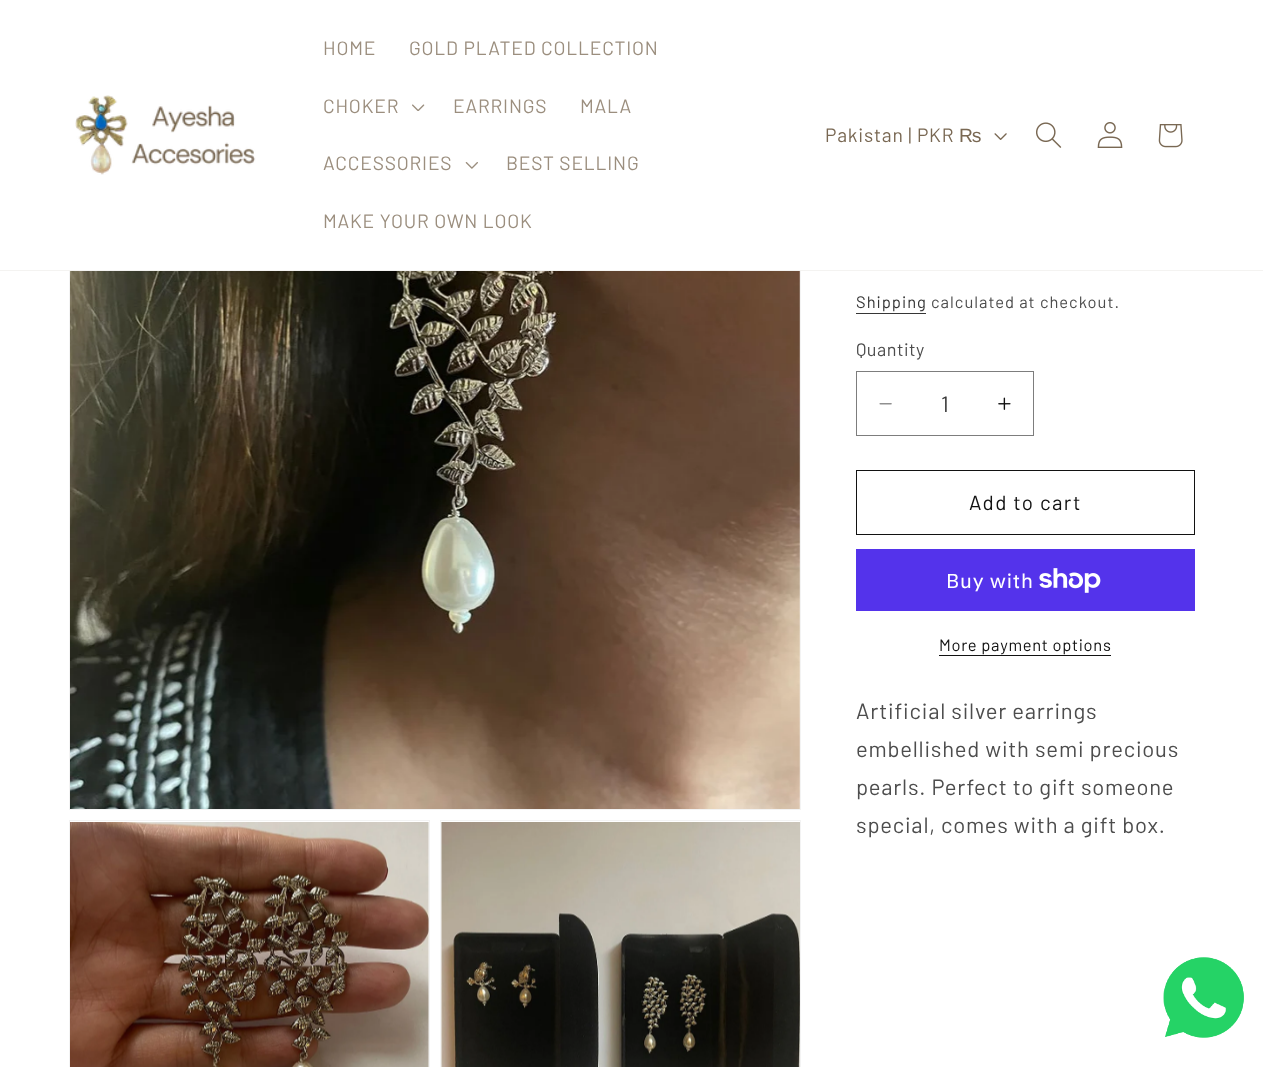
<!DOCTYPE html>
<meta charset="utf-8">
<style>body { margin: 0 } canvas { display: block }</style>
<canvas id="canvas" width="1263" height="1067"></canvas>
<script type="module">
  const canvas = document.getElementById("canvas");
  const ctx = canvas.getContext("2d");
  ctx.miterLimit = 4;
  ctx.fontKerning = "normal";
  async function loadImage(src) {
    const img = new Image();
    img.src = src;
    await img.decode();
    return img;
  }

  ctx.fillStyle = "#ffffff";
  ctx.fillRect(0, 0, 1263, 1067);
  ctx.strokeStyle = "#f3f3f3";
  ctx.strokeRect(69.5, 79.5, 731, 730);
  ctx.fillRect(69, 79, 732, 191);
  ctx.fillStyle = "#f4f3f1";
  ctx.fillRect(0, 270, 1263, 1);
  ctx.drawImage(await loadImage("img1.png"), 75, 95, 181, 80);
  ctx.letterSpacing = "0.8px";
  ctx.font = "19.25px Barlow";
  ctx.fillStyle = "#9b8e7e";
  ctx.fillText("HOME", 323, 55);
  ctx.fillText("GOLD PLATED COLLECTION", 409, 55);
  ctx.fillText("CHOKER", 323, 113);
  ctx.drawImage(await loadImage("img2.png"), 412, 104, 13, 7);
  ctx.fillText("EARRINGS", 453, 113);
  ctx.fillText("MALA", 580, 113);
  ctx.fillText("ACCESSORIES", 323, 170);
  ctx.drawImage(await loadImage("img3.png"), 465, 162, 13, 7);
  ctx.fillText("BEST SELLING", 506, 170);
  ctx.fillText("MAKE YOUR OWN LOOK", 323, 228);
  ctx.fillStyle = "#796853";
  ctx.fillText("Pakistan | PKR", 825, 142);
  ctx.font = "19.25px Liberation Sans";
  ctx.fillText("₨", 959, 142);
  ctx.drawImage(await loadImage("img4.png"), 994, 133, 13, 7);
  ctx.drawImage(await loadImage("img5.png"), 1036, 122, 26, 26);
  ctx.drawImage(await loadImage("img6.png"), 1097, 122, 26, 26);
  ctx.drawImage(await loadImage("img7.png"), 1158, 124, 25, 24);
  ctx.drawImage(await loadImage("img8.png"), 70, 271, 730, 538);
  ctx.strokeRect(69.5, 820.5, 360, 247);
  ctx.drawImage(await loadImage("img9.png"), 70, 822, 359, 245);
  ctx.strokeRect(440.5, 820.5, 360, 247);
  ctx.drawImage(await loadImage("img10.png"), 441, 822, 359, 245);
  ctx.letterSpacing = "1px";
  ctx.font = "16.5px Barlow";
  ctx.fillStyle = "#363636";
  ctx.fillText("Shipping", 856, 308);
  ctx.fillRect(856, 313, 70, 1);
  ctx.fillStyle = "#4d4d4d";
  ctx.fillText("calculated at checkout.", 931, 308);
  ctx.letterSpacing = "0.5px";
  ctx.font = "18px Barlow";
  ctx.fillText("Quantity", 856, 356);
  ctx.drawImage(await loadImage("img11.png"), 879, 403, 13, 2);
  ctx.drawImage(await loadImage("img12.png"), 998, 397, 13, 13);
  ctx.strokeStyle = "#7d7d7d";
  ctx.strokeRect(856.5, 371.5, 177, 64);
  ctx.letterSpacing = "0px";
  ctx.font = "22px Barlow";
  ctx.fillStyle = "#363636";
  ctx.fillText("1", 941, 412);
  ctx.strokeStyle = "#121212";
  ctx.strokeRect(856.5, 470.5, 338, 64);
  ctx.letterSpacing = "1.4px";
  ctx.font = "20.5px Barlow";
  ctx.fillStyle = "#121212";
  ctx.fillText("Add to cart", 969, 510);
  ctx.fillStyle = "#5433eb";
  ctx.fillRect(856, 549, 339, 62);
  ctx.letterSpacing = "0.8px";
  ctx.font = "20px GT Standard";
  ctx.fillStyle = "#ffffff";
  ctx.fillText("Buy with", 946, 588);
  ctx.drawImage(await loadImage("img13.png"), 1039, 568, 62, 25);
  ctx.letterSpacing = "0.7px";
  ctx.font = "16.5px Barlow";
  ctx.fillStyle = "#121212";
  ctx.fillText("More payment options", 939, 651);
  ctx.fillRect(939, 655, 172, 1);
  ctx.letterSpacing = "0.8px";
  ctx.font = "22px Barlow";
  ctx.fillStyle = "#4d4d4d";
  ctx.fillText("Artificial silver earrings", 856, 719);
  ctx.fillText("embellished with semi precious", 856, 757);
  ctx.fillText("pearls. Perfect to gift someone", 856, 795);
  ctx.fillText("special, comes with a gift box.", 856, 833);
  ctx.drawImage(await loadImage("img14.png"), 1163, 957, 81, 81);
  ctx.drawImage(await loadImage("img15.png"), 1163, 957, 81, 81);
</script>
